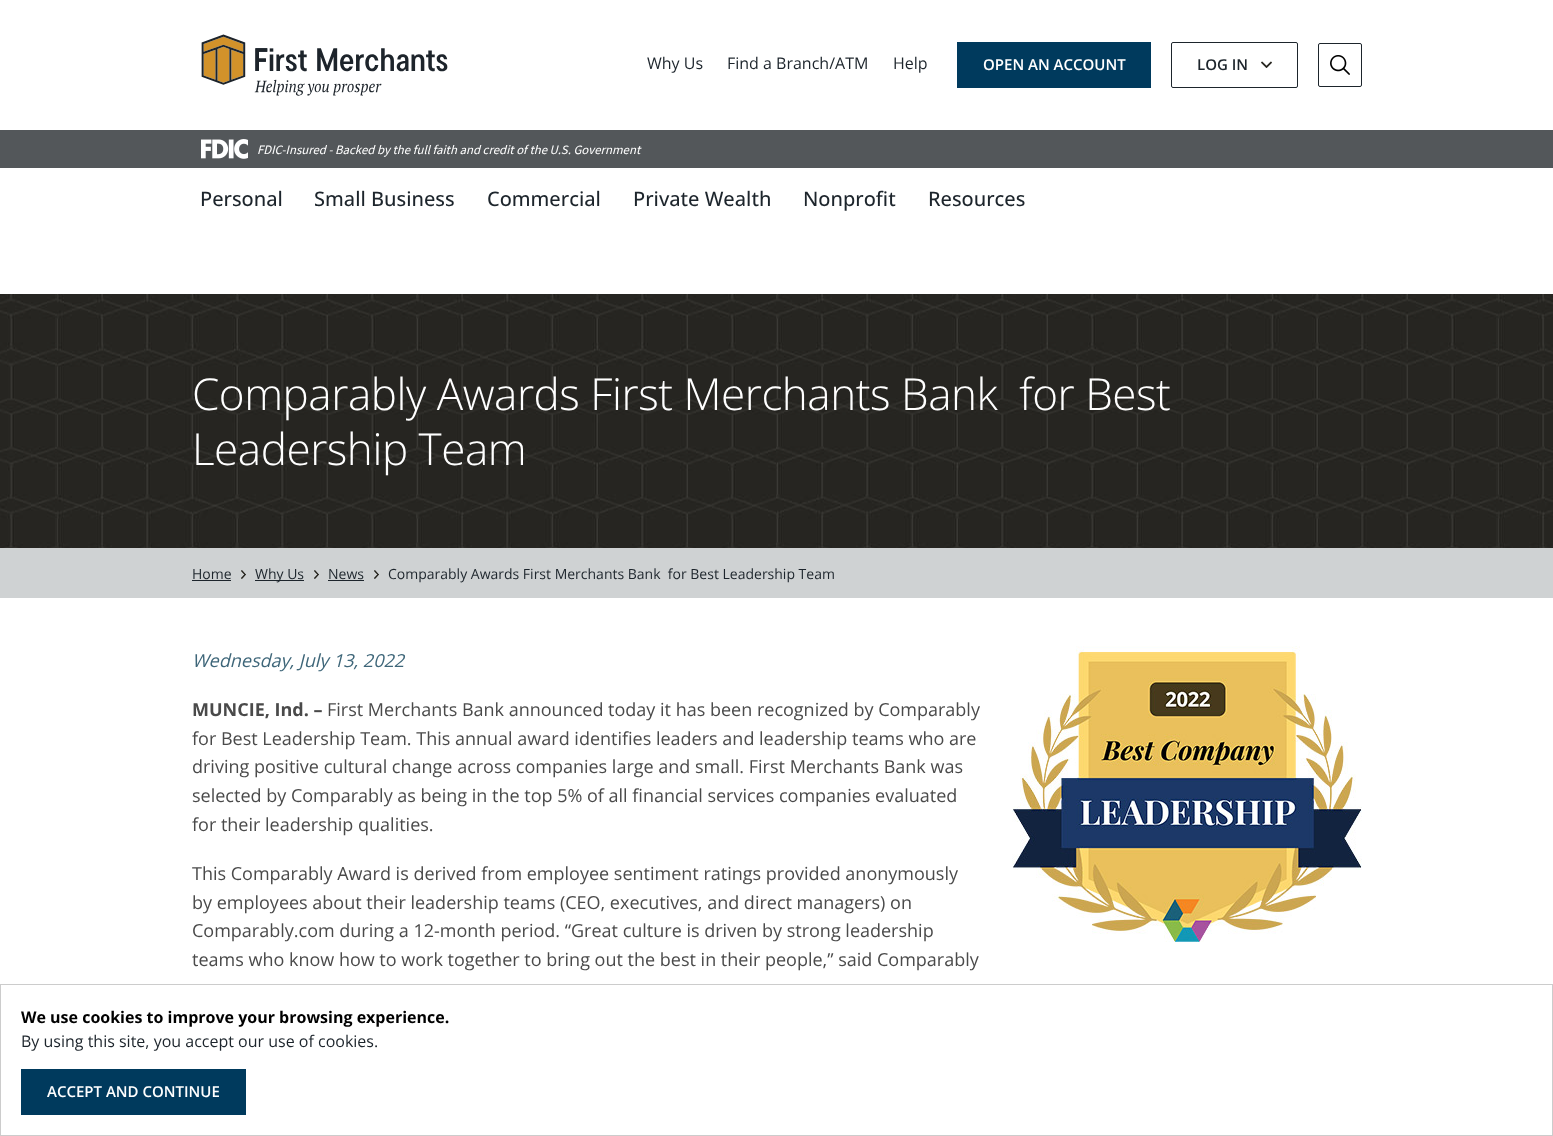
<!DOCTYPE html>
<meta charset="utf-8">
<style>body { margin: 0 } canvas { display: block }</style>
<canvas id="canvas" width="1553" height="1136"></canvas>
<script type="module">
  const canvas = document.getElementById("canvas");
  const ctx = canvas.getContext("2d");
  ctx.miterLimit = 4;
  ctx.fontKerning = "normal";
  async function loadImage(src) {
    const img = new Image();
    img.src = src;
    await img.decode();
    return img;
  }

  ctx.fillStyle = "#ffffff";
  ctx.fillRect(0, 0, 1553, 1136);
  ctx.drawImage(await loadImage("img1.png"), 201, 34, 247, 62);
  ctx.font = "16px Open Sans";
  ctx.fillStyle = "#1d252c";
  ctx.fillText("Why Us", 647, 69);
  ctx.fillText("Find a Branch/ATM", 727, 69);
  ctx.fillText("Help", 893, 69);
  ctx.fillStyle = "#003a5d";
  ctx.fillRect(957, 42, 194, 46);
  ctx.font = "600 15px Open Sans";
  ctx.fillStyle = "#ffffff";
  ctx.fillText("OPEN AN ACCOUNT", 983, 70);
  ctx.beginPath();
  ctx.roundRect(1171.5, 42.5, 126, 45, 1.5);
  ctx.strokeStyle = "#1d252c";
  ctx.stroke();
  ctx.fillStyle = "#1d252c";
  ctx.fillText("LOG IN", 1197, 70);
  ctx.drawImage(await loadImage("img2.png"), 1261, 61, 11, 7);
  ctx.beginPath();
  ctx.roundRect(1318.5, 43.5, 43, 43, 1.5);
  ctx.stroke();
  ctx.drawImage(await loadImage("img3.png"), 1330, 55, 20, 20);
  ctx.fillStyle = "#53575a";
  ctx.fillRect(0, 130, 1553, 38);
  ctx.drawImage(await loadImage("img4.png"), 201, 139, 47, 20);
  ctx.font = "italic 12.8px Source Sans Pro";
  ctx.fillStyle = "#ffffff";
  ctx.fillText("FDIC-Insured - Backed by the full faith and credit of the U.S. Government", 257, 154);
  ctx.font = "500 20px Open Sans";
  ctx.fillStyle = "#1d252c";
  ctx.fillText("Personal", 200, 206);
  ctx.fillText("Small Business", 314, 206);
  ctx.fillText("Commercial", 487, 206);
  ctx.fillText("Private Wealth", 633, 206);
  ctx.fillText("Nonprofit", 803, 206);
  ctx.fillText("Resources", 928, 206);
  ctx.drawImage(await loadImage("img5.png"), 0, 294, 1553, 254);
  ctx.letterSpacing = "-0.45px";
  ctx.font = "300 44px Open Sans";
  ctx.fillStyle = "#ffffff";
  ctx.fillText("Comparably Awards First Merchants Bank  for Best", 192, 410);
  ctx.fillText("Leadership Team", 192, 465);
  ctx.fillStyle = "#cfd2d3";
  ctx.fillRect(0, 548, 1553, 50);
  ctx.letterSpacing = "0px";
  ctx.font = "14px Open Sans";
  ctx.fillStyle = "#1d252c";
  ctx.fillText("Home", 192, 579);
  ctx.fillRect(192, 580, 39, 1);
  ctx.drawImage(await loadImage("img6.png"), 241, 570, 5, 9);
  ctx.fillRect(255, 580, 49, 1);
  ctx.fillText("Why Us", 255, 579);
  ctx.drawImage(await loadImage("img6.png"), 314, 570, 5, 9);
  ctx.fillText("News", 328, 579);
  ctx.fillRect(328, 580, 36, 1);
  ctx.drawImage(await loadImage("img6.png"), 374, 570, 5, 9);
  ctx.fillText("Comparably Awards First Merchants Bank  for Best Leadership Team", 388, 579);
  ctx.font = "italic 18px Open Sans";
  ctx.fillStyle = "#3e6679";
  ctx.fillText("Wednesday, July 13, 2022", 192, 667);
  ctx.drawImage(await loadImage("img7.png"), 1012, 646, 350, 296);
  ctx.font = "bold 18px Open Sans";
  ctx.fillStyle = "#4a4a4a";
  ctx.fillText("MUNCIE, Ind. –", 192, 716);
  ctx.font = "18px Open Sans";
  ctx.fillText("First Merchants Bank announced today it has been recognized by Comparably", 327, 716);
  ctx.fillText("for Best Leadership Team. This annual award identifies leaders and leadership teams who are", 192, 745);
  ctx.fillText("driving positive cultural change across companies large and small. First Merchants Bank was", 192, 773);
  ctx.fillText("selected by Comparably as being in the top 5% of all financial services companies evaluated", 192, 802);
  ctx.fillText("for their leadership qualities.", 192, 831);
  ctx.fillText("This Comparably Award is derived from employee sentiment ratings provided anonymously", 192, 880);
  ctx.fillText("by employees about their leadership teams (CEO, executives, and direct managers) on", 192, 909);
  ctx.fillText("Comparably.com during a 12-month period. “Great culture is driven by strong leadership", 192, 937);
  ctx.fillText("teams who know how to work together to bring out the best in their people,” said Comparably", 192, 966);
  ctx.strokeStyle = "#cccccc";
  ctx.strokeRect(0.5, 984.5, 1552, 151);
  ctx.font = "bold 16px Open Sans";
  ctx.fillStyle = "#000000";
  ctx.fillText("We use cookies to improve your browsing experience.", 21, 1023);
  ctx.font = "16px Open Sans";
  ctx.fillStyle = "#1d252c";
  ctx.fillText("By using this site, you accept our use of cookies.", 21, 1047);
  ctx.fillStyle = "#003a5d";
  ctx.fillRect(21, 1069, 225, 46);
  ctx.font = "600 15px Open Sans";
  ctx.fillStyle = "#ffffff";
  ctx.fillText("ACCEPT AND CONTINUE", 47, 1097);
</script>
